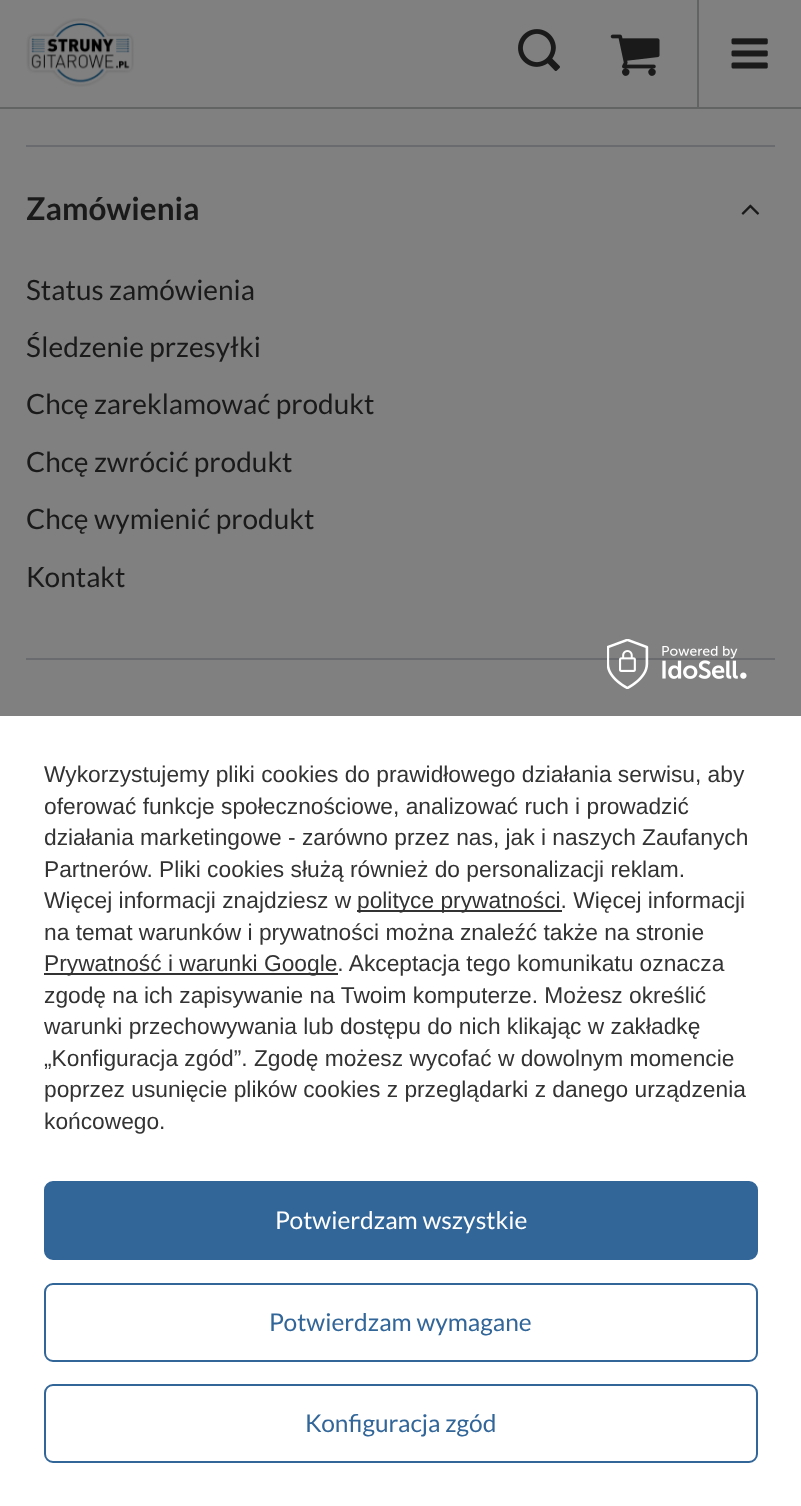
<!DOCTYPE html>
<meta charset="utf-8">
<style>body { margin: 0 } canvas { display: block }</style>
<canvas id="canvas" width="801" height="1506"></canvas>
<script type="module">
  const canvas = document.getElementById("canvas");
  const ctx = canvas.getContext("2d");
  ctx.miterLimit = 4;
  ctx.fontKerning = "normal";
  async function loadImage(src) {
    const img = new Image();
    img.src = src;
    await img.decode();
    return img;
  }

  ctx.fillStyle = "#808080";
  ctx.fillRect(0, 0, 801, 1506);
  ctx.fillStyle = "#626464";
  ctx.fillRect(0, 107, 801, 2);
  ctx.drawImage(await loadImage("img1.png"), 26, 18, 108, 69);
  ctx.drawImage(await loadImage("img2.png"), 518, 29, 42, 42);
  ctx.drawImage(await loadImage("img3.png"), 610, 34, 50, 42);
  ctx.fillRect(697, 0, 2, 107);
  ctx.drawImage(await loadImage("img4.png"), 731, 38, 37, 31);
  ctx.fillStyle = "#696b6e";
  ctx.fillRect(26, 145, 749, 2);
  ctx.fillRect(26, 658, 749, 2);
  ctx.font = "bold 31.5px Lato";
  ctx.fillStyle = "#1a1a1a";
  ctx.fillText("Zamówienia", 26, 220);
  ctx.drawImage(await loadImage("img5.png"), 741, 204, 19, 11);
  ctx.font = "28px Lato";
  ctx.fillText("Status zamówienia", 26, 300);
  ctx.fillText("Śledzenie przesyłki", 26, 357);
  ctx.fillText("Chcę zareklamować produkt", 26, 414);
  ctx.fillText("Chcę zwrócić produkt", 26, 472);
  ctx.fillText("Chcę wymienić produkt", 26, 529);
  ctx.fillText("Kontakt", 26, 587);
  ctx.fillStyle = "#ffffff";
  ctx.fillRect(0, 716, 801, 790);
  ctx.drawImage(await loadImage("img6.png"), 607, 639, 140, 50);
  ctx.font = "22.75px Liberation Sans";
  ctx.fillStyle = "#333333";
  ctx.fillText("Wykorzystujemy pliki cookies do prawidłowego działania serwisu, aby", 44, 782);
  ctx.fillText("oferować funkcje społecznościowe, analizować ruch i prowadzić", 44, 814);
  ctx.fillText("działania marketingowe - zarówno przez nas, jak i naszych Zaufanych", 44, 845);
  ctx.fillText("Partnerów. Pliki cookies służą również do personalizacji reklam.", 44, 877);
  ctx.fillText("Więcej informacji znajdziesz w", 44, 908);
  ctx.fillRect(357, 910, 205, 2);
  ctx.fillText("polityce prywatności. Więcej informacji", 357, 908);
  ctx.fillText("na temat warunków i prywatności można znaleźć także na stronie", 44, 940);
  ctx.fillRect(44, 973, 294, 2);
  ctx.fillText("Prywatność i warunki Google. Akceptacja tego komunikatu oznacza", 44, 971);
  ctx.fillText("zgodę na ich zapisywanie na Twoim komputerze. Możesz określić", 44, 1003);
  ctx.fillText("warunki przechowywania lub dostępu do nich klikając w zakładkę", 44, 1034);
  ctx.fillText("„Konfiguracja zgód”. Zgodę możesz wycofać w dowolnym momencie", 44, 1066);
  ctx.fillText("poprzez usunięcie plików cookies z przeglądarki z danego urządzenia", 44, 1097);
  ctx.fillText("końcowego.", 44, 1129);
  ctx.fillStyle = "#326699";
  ctx.beginPath();
  ctx.roundRect(45, 1182, 712, 77, 8);
  ctx.fill();
  ctx.strokeStyle = "#326699";
  ctx.lineWidth = 2;
  ctx.stroke();
  ctx.font = "24.5px Lato";
  ctx.fillStyle = "#ffffff";
  ctx.fillText("Potwierdzam wszystkie", 275, 1229);
  ctx.beginPath();
  ctx.roundRect(45, 1284, 712, 77, 8);
  ctx.stroke();
  ctx.fillStyle = "#326699";
  ctx.fillText("Potwierdzam wymagane", 269, 1331);
  ctx.beginPath();
  ctx.roundRect(45, 1385, 712, 77, 8);
  ctx.stroke();
  ctx.fillText("Konfiguracja zgód", 305, 1432);
</script>
